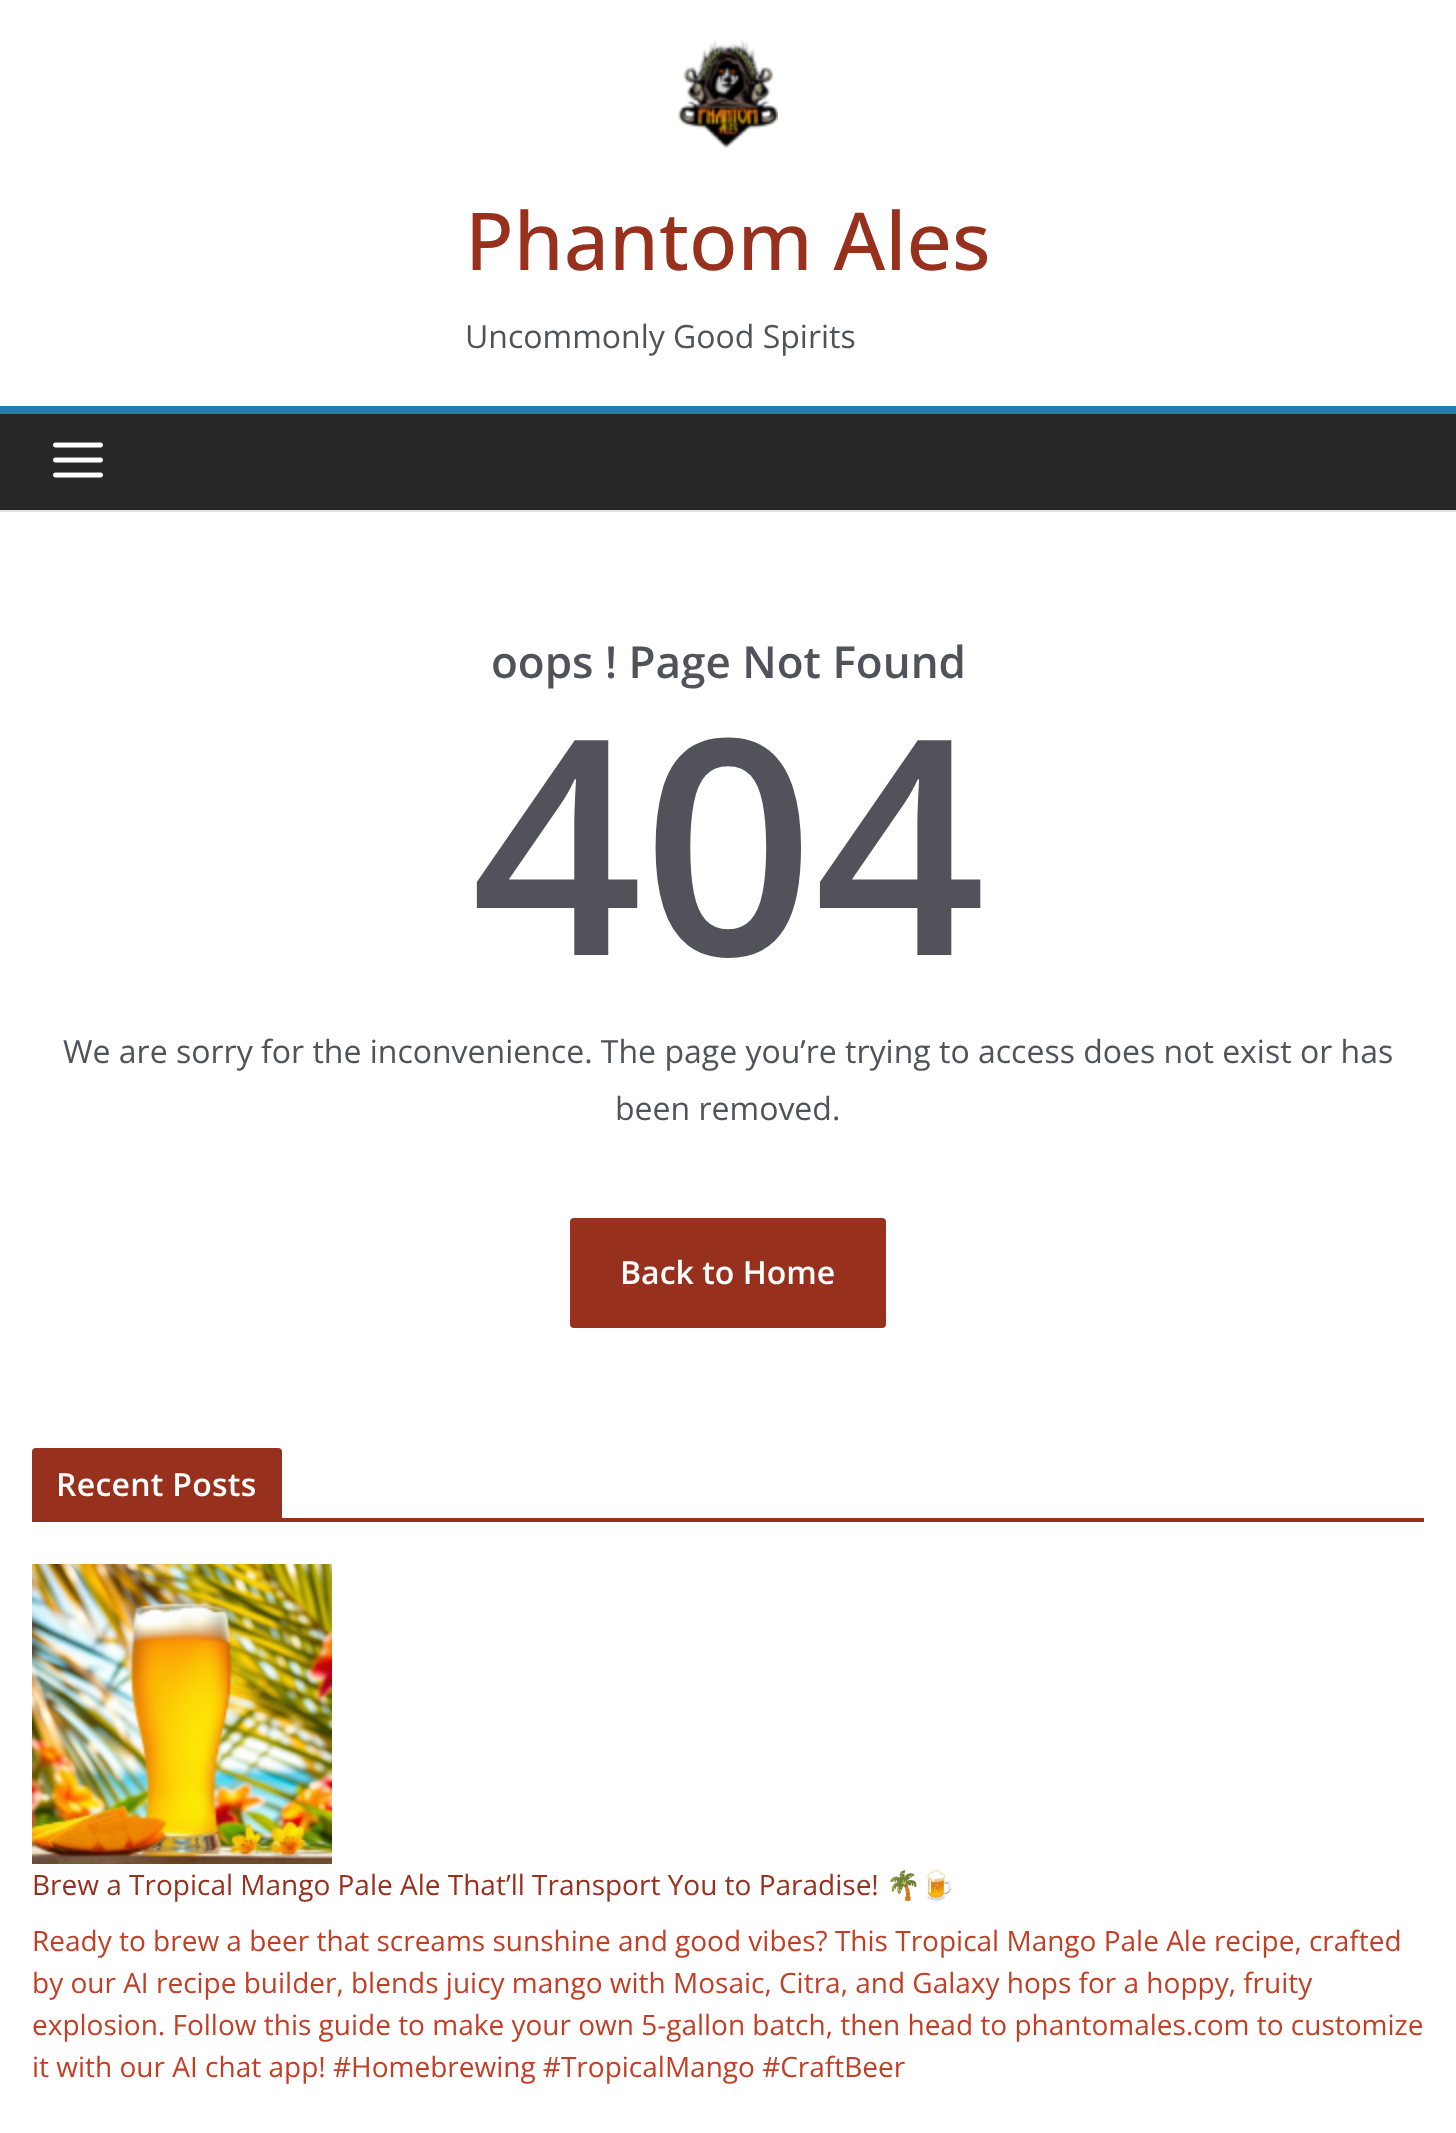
<!DOCTYPE html>
<meta charset="utf-8">
<style>body { margin: 0 } canvas { display: block }</style>
<canvas id="canvas" width="1456" height="2133"></canvas>
<script type="module">
  const canvas = document.getElementById("canvas");
  const ctx = canvas.getContext("2d");
  ctx.miterLimit = 4;
  ctx.fontKerning = "normal";
  async function loadImage(src) {
    const img = new Image();
    img.src = src;
    await img.decode();
    return img;
  }

  ctx.fillStyle = "#e4e4e7";
  ctx.fillRect(0, 0, 1456, 2133);
  ctx.fillStyle = "#ffffff";
  ctx.fillRect(0, 0, 1456, 406);
  ctx.drawImage(await loadImage("img1.png"), 678, 40, 100, 108);
  ctx.font = "500 80px Open Sans";
  ctx.fillStyle = "#97311d";
  ctx.fillText("Phantom Ales", 465, 270);
  ctx.font = "32px Open Sans";
  ctx.fillStyle = "#52525b";
  ctx.fillText("Uncommonly Good Spirits", 465, 348);
  ctx.fillStyle = "#27272a";
  ctx.fillRect(0, 414, 1456, 96);
  ctx.fillStyle = "#207daf";
  ctx.fillRect(0, 406, 1456, 8);
  ctx.drawImage(await loadImage("img2.png"), 53, 442, 50, 36);
  ctx.fillStyle = "#ffffff";
  ctx.fillRect(0, 512, 1456, 1621);
  ctx.font = "600 44px Open Sans";
  ctx.fillStyle = "#52525b";
  ctx.fillText("oops ! Page Not Found", 491, 678);
  ctx.font = "600 300px Open Sans";
  ctx.fillText("404", 471, 955);
  ctx.font = "32px Open Sans";
  ctx.fillText("We are sorry for the inconvenience. The page you’re trying to access does not exist or has", 63, 1063);
  ctx.fillText("been removed.", 615, 1120);
  ctx.fillStyle = "#97311d";
  ctx.beginPath();
  ctx.roundRect(571, 1219, 314, 108, 3);
  ctx.fill();
  ctx.strokeStyle = "#97311d";
  ctx.lineWidth = 2;
  ctx.stroke();
  ctx.font = "600 32px Open Sans";
  ctx.fillStyle = "#ffffff";
  ctx.fillText("Back to Home", 620, 1284);
  ctx.fillStyle = "#97311d";
  ctx.fillRect(32, 1518, 1392, 4);
  ctx.beginPath();
  ctx.roundRect(32, 1448, 250, 70, [4, 4, 0, 0]);
  ctx.fill();
  ctx.letterSpacing = "0.25px";
  ctx.fillStyle = "#ffffff";
  ctx.fillText("Recent Posts", 56, 1496);
  ctx.drawImage(await loadImage("img3.png"), 32, 1564, 300, 300);
  ctx.letterSpacing = "0px";
  ctx.font = "28px Open Sans";
  ctx.fillStyle = "#97311d";
  ctx.fillText("Brew a Tropical Mango Pale Ale That’ll Transport You to Paradise!", 32, 1895);
  ctx.font = "28px Noto Color Emoji";
  ctx.fillText("🌴🍺", 886, 1895);
  ctx.font = "28px Open Sans";
  ctx.fillStyle = "#c23f25";
  ctx.fillText("Ready to brew a beer that screams sunshine and good vibes? This Tropical Mango Pale Ale recipe, crafted", 32, 1951);
  ctx.fillText("by our AI recipe builder, blends juicy mango with Mosaic, Citra, and Galaxy hops for a hoppy, fruity", 32, 1993);
  ctx.fillText("explosion. Follow this guide to make your own 5-gallon batch, then head to phantomales.com to customize", 32, 2035);
  ctx.fillText("it with our AI chat app! #Homebrewing #TropicalMango #CraftBeer", 32, 2077);
</script>
